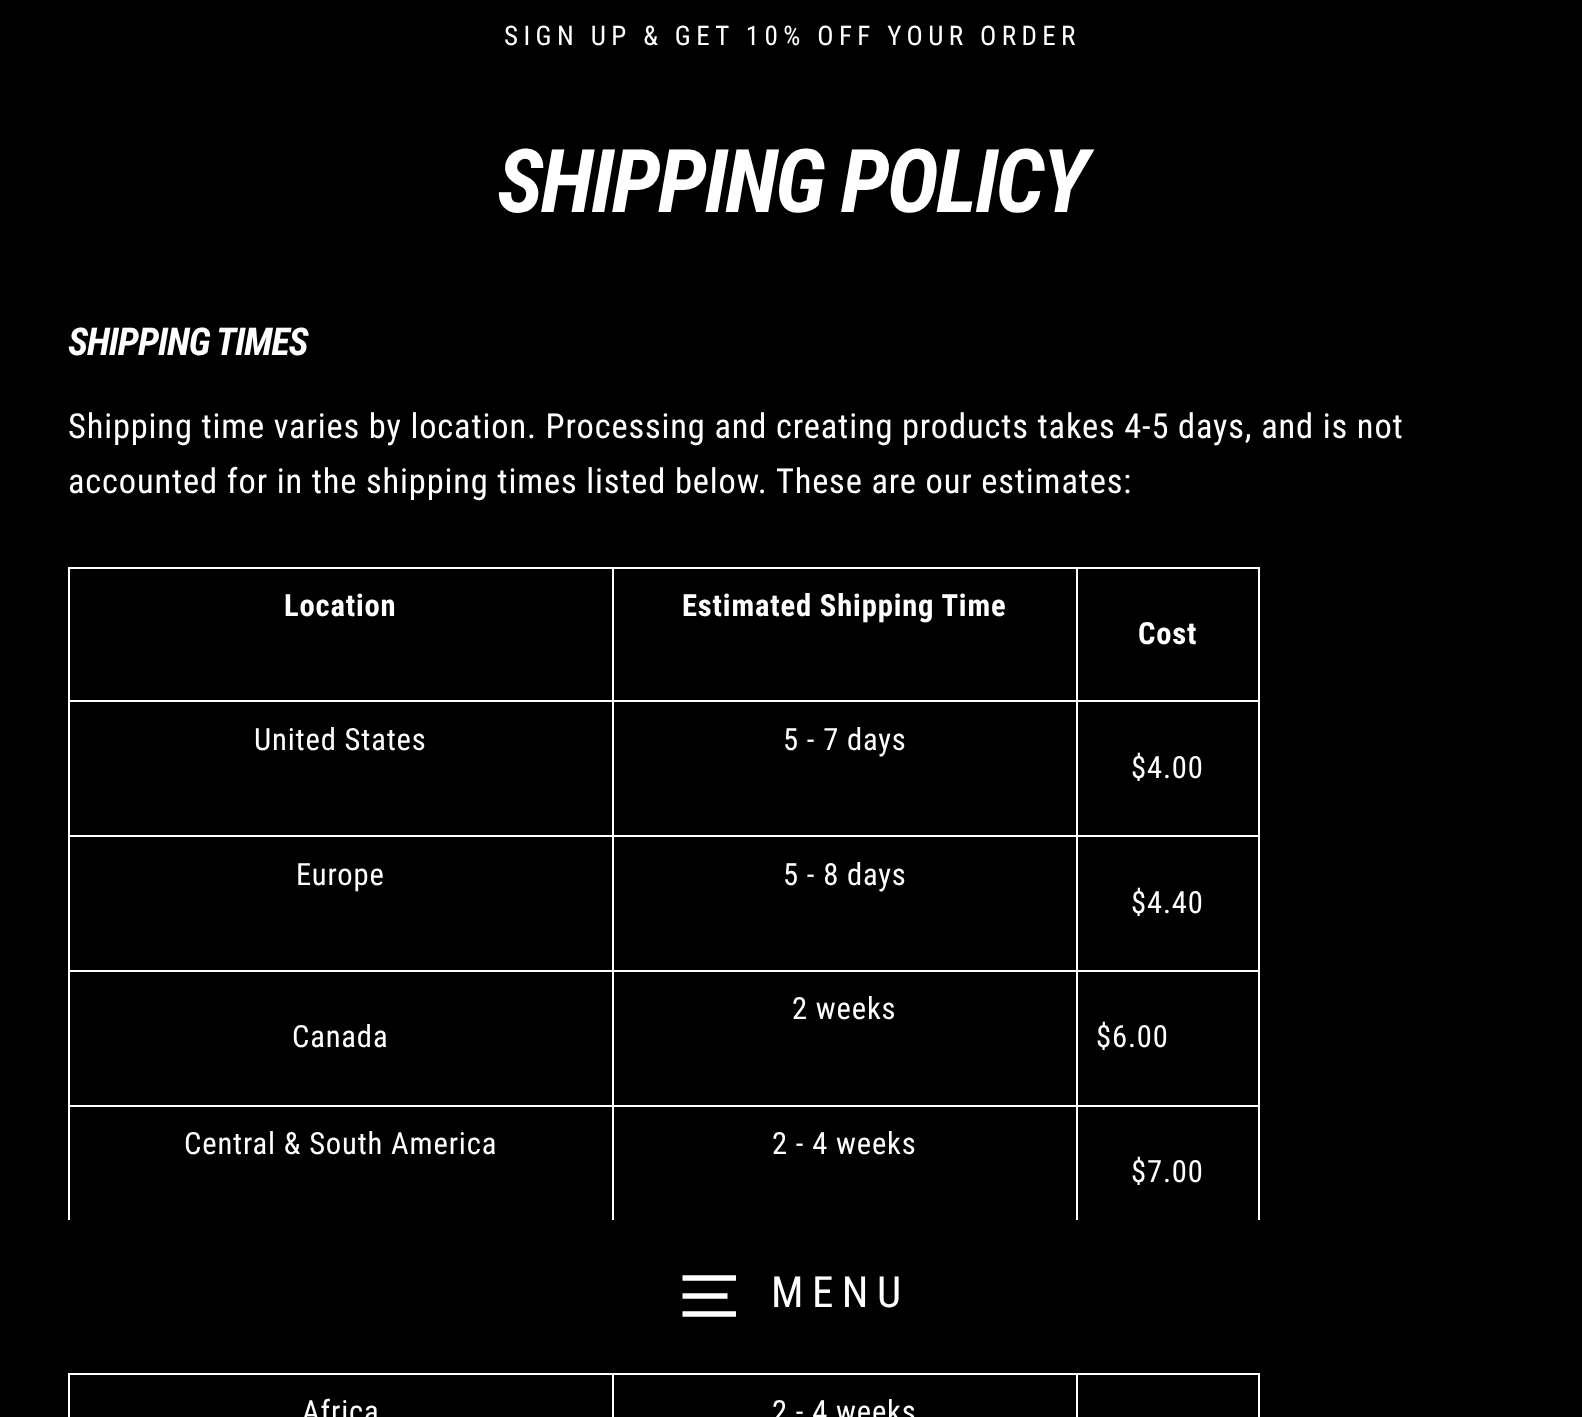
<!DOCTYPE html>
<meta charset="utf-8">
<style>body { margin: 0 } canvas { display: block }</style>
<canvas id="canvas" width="1582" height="1417"></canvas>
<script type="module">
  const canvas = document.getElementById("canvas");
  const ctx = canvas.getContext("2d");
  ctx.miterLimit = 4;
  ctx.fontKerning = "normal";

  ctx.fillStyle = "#000000";
  ctx.fillRect(0, 0, 1582, 1417);
  ctx.letterSpacing = "5.4px";
  ctx.font = "27px Roboto Condensed";
  ctx.fillStyle = "#ffffff";
  ctx.fillText("SIGN UP & GET 10% OFF YOUR ORDER", 504, 45);
  ctx.fillRect(68, 567, 1192, 850);
  ctx.fillStyle = "#000000";
  ctx.fillRect(68, 1220, 1192, 153);
  ctx.beginPath();
  ctx.moveTo(682.5, 1278);
  ctx.lineTo(736, 1278);
  ctx.moveTo(682.5, 1296);
  ctx.lineTo(727.5, 1296);
  ctx.moveTo(682.5, 1314);
  ctx.lineTo(736, 1314);
  ctx.strokeStyle = "#ffffff";
  ctx.lineWidth = 5.3;
  ctx.stroke();
  ctx.letterSpacing = "8.5px";
  ctx.font = "43px Roboto Condensed";
  ctx.fillStyle = "#ffffff";
  ctx.fillText("MENU", 771, 1307);
  ctx.letterSpacing = "-2.25px";
  ctx.font = "italic bold 88px Roboto Condensed";
  ctx.fillText("SHIPPING POLICY", 497, 212);
  ctx.letterSpacing = "-1px";
  ctx.font = "italic bold 38.25px Roboto Condensed";
  ctx.fillText("SHIPPING TIMES", 68, 355);
  ctx.letterSpacing = "0.85px";
  ctx.font = "34.45px Roboto Condensed";
  ctx.fillText("Shipping time varies by location. Processing and creating products takes 4-5 days, and is not", 68, 438);
  ctx.fillText("accounted for in the shipping times listed below. These are our estimates:", 68, 493);
  ctx.fillStyle = "#000000";
  ctx.fillRect(70, 569, 542, 131);
  ctx.font = "bold 30.6px Roboto Condensed";
  ctx.fillStyle = "#ffffff";
  ctx.fillText("Location", 284, 616);
  ctx.fillStyle = "#000000";
  ctx.fillRect(614, 569, 462, 131);
  ctx.fillStyle = "#ffffff";
  ctx.fillText("Estimated Shipping Time", 682, 616);
  ctx.fillStyle = "#000000";
  ctx.fillRect(1078, 569, 180, 131);
  ctx.fillStyle = "#ffffff";
  ctx.fillText("Cost", 1138, 644);
  ctx.fillStyle = "#000000";
  ctx.fillRect(70, 702, 542, 133);
  ctx.font = "30.6px Roboto Condensed";
  ctx.fillStyle = "#ffffff";
  ctx.fillText("United States", 254, 750);
  ctx.fillStyle = "#000000";
  ctx.fillRect(614, 702, 462, 133);
  ctx.fillStyle = "#ffffff";
  ctx.fillText("5 - 7 days", 783, 750);
  ctx.fillStyle = "#000000";
  ctx.fillRect(1078, 702, 180, 133);
  ctx.fillStyle = "#ffffff";
  ctx.fillText("$4.00", 1131, 778);
  ctx.fillStyle = "#000000";
  ctx.fillRect(70, 837, 542, 133);
  ctx.fillStyle = "#ffffff";
  ctx.fillText("Europe", 296, 885);
  ctx.fillStyle = "#000000";
  ctx.fillRect(614, 837, 462, 133);
  ctx.fillStyle = "#ffffff";
  ctx.fillText("5 - 8 days", 783, 885);
  ctx.fillStyle = "#000000";
  ctx.fillRect(1078, 837, 180, 133);
  ctx.fillStyle = "#ffffff";
  ctx.fillText("$4.40", 1131, 913);
  ctx.fillStyle = "#000000";
  ctx.fillRect(614, 972, 462, 133);
  ctx.fillStyle = "#ffffff";
  ctx.fillText("2 weeks", 792, 1019);
  ctx.fillStyle = "#000000";
  ctx.fillRect(70, 972, 542, 133);
  ctx.fillStyle = "#ffffff";
  ctx.fillText("Canada", 292, 1047);
  ctx.fillStyle = "#000000";
  ctx.fillRect(1078, 972, 180, 133);
  ctx.fillStyle = "#ffffff";
  ctx.fillText("$6.00", 1096, 1047);
  ctx.fillStyle = "#000000";
  ctx.fillRect(70, 1107, 542, 113);
  ctx.fillStyle = "#ffffff";
  ctx.fillText("Central & South America", 184, 1154);
  ctx.fillStyle = "#000000";
  ctx.fillRect(614, 1107, 462, 113);
  ctx.fillStyle = "#ffffff";
  ctx.fillText("2 - 4 weeks", 772, 1154);
  ctx.fillStyle = "#000000";
  ctx.fillRect(1078, 1107, 180, 113);
  ctx.fillStyle = "#ffffff";
  ctx.fillText("$7.00", 1131, 1182);
  ctx.fillStyle = "#000000";
  ctx.fillRect(70, 1375, 542, 42);
  ctx.fillStyle = "#ffffff";
  ctx.fillText("Africa", 302, 1422);
  ctx.fillStyle = "#000000";
  ctx.fillRect(614, 1375, 462, 42);
  ctx.fillStyle = "#ffffff";
  ctx.fillText("2 - 4 weeks", 772, 1422);
  ctx.fillStyle = "#000000";
  ctx.fillRect(1078, 1375, 180, 42);
</script>
